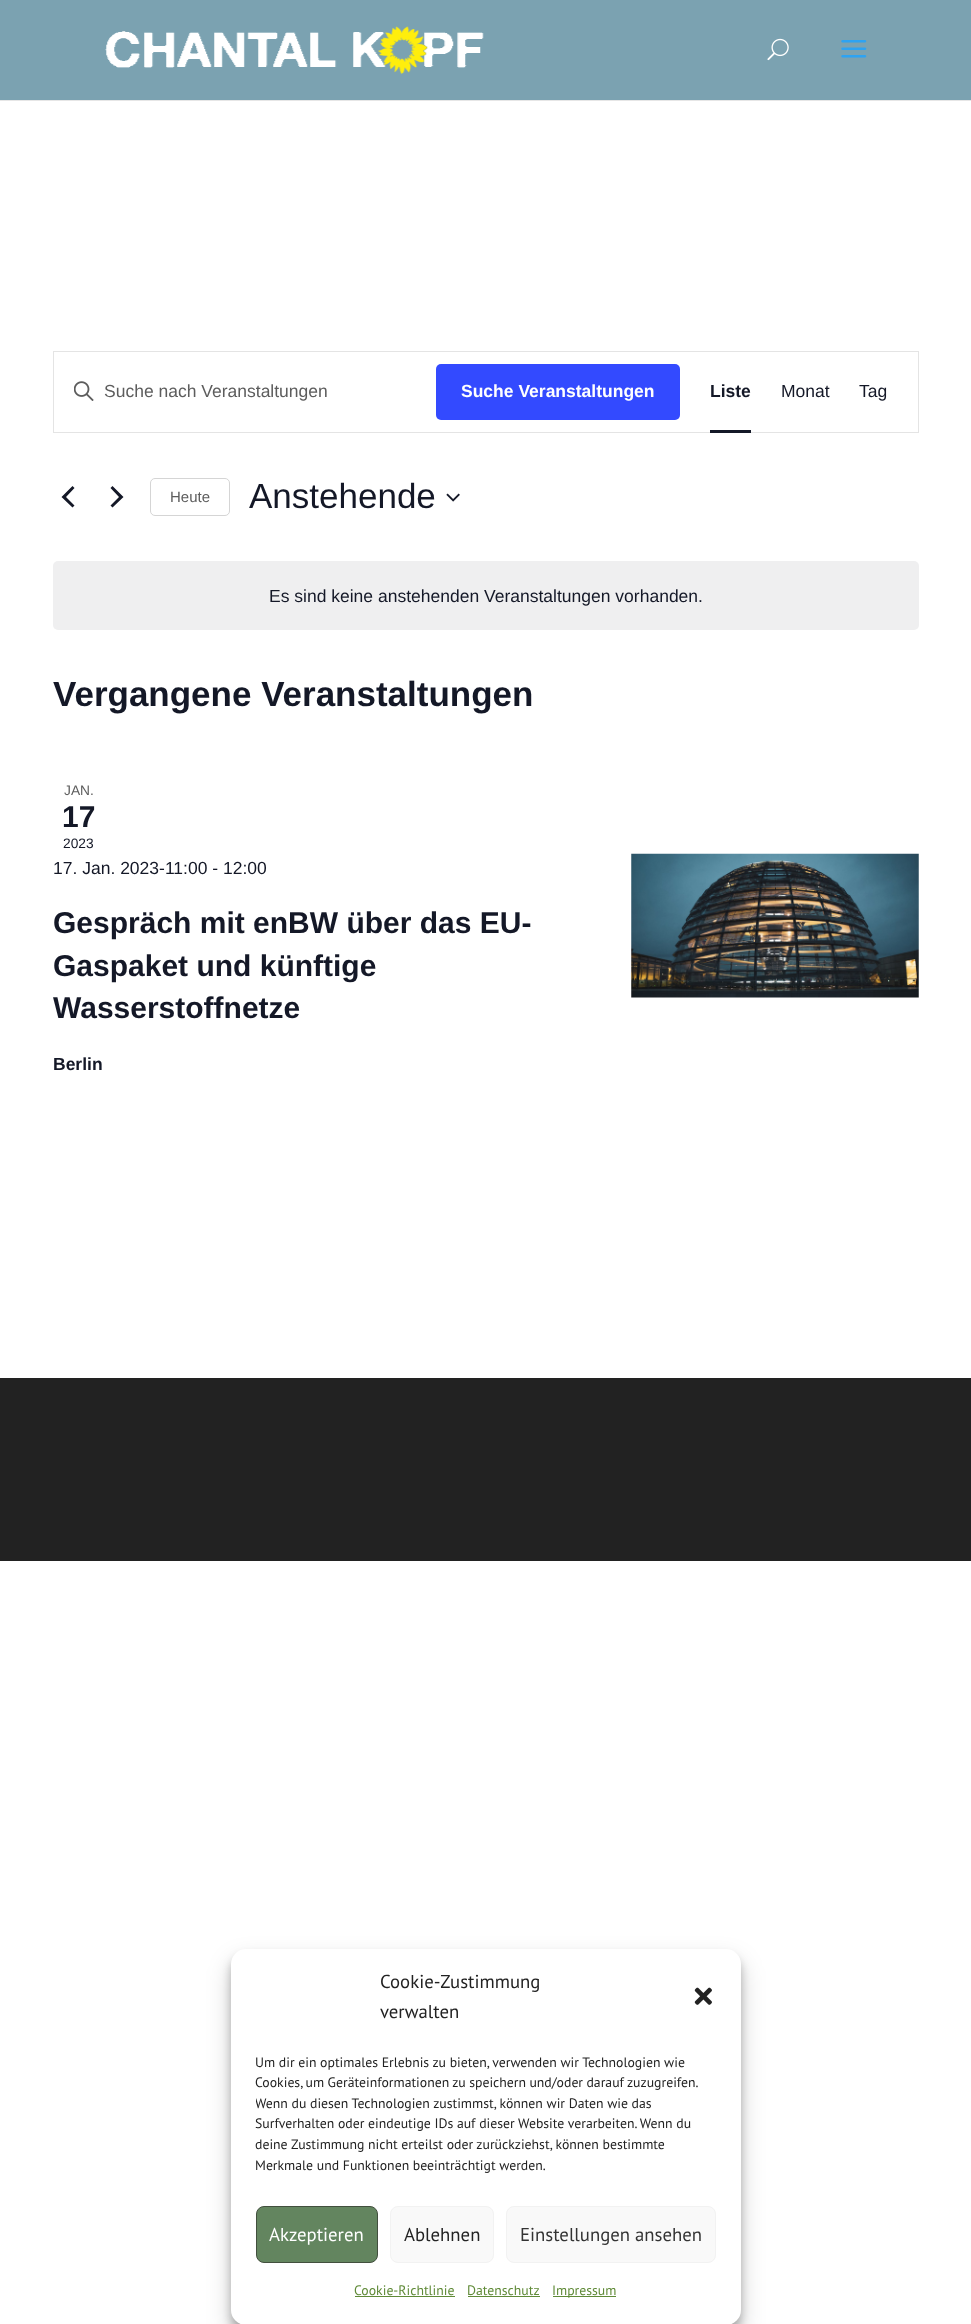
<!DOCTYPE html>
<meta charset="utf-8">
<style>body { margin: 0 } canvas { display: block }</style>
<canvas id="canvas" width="971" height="2324"></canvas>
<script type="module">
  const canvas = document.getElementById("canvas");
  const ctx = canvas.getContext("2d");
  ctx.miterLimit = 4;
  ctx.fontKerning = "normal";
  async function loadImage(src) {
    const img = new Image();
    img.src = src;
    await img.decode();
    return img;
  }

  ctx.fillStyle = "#ffffff";
  ctx.fillRect(0, 0, 971, 2324);
  ctx.fillStyle = "#e6e6e6";
  ctx.fillRect(0, 100, 971, 1);
  ctx.fillStyle = "#7ba2b1";
  ctx.fillRect(0, 0, 971, 100);
  ctx.drawImage(await loadImage("img1.png"), 105, 26, 379, 48);
  ctx.drawImage(await loadImage("img2.png"), 767, 38, 22, 23);
  ctx.drawImage(await loadImage("img3.png"), 841, 40, 26, 18);
  ctx.strokeStyle = "#e4e4e4";
  ctx.strokeRect(53.5, 351.5, 865, 81);
  ctx.drawImage(await loadImage("img4.png"), 74, 381, 20, 20);
  ctx.font = "17.5px Liberation Sans";
  ctx.fillStyle = "#5d5d5d";
  ctx.fillText("Suche nach Veranstaltungen", 104, 397);
  ctx.fillStyle = "#334aff";
  ctx.beginPath();
  ctx.roundRect(436, 364, 244, 56, 5);
  ctx.fill();
  ctx.font = "bold 17.5px Liberation Sans";
  ctx.fillStyle = "#ffffff";
  ctx.fillText("Suche Veranstaltungen", 461, 397);
  ctx.fillStyle = "#141827";
  ctx.fillText("Liste", 710, 397);
  ctx.fillRect(710, 430, 41, 3);
  ctx.font = "17.5px Liberation Sans";
  ctx.fillText("Monat", 781, 397);
  ctx.fillText("Tag", 859, 397);
  ctx.beginPath();
  ctx.moveTo(74.5, 505.5);
  ctx.lineTo(72.5, 507.5);
  ctx.lineTo(61.5, 497);
  ctx.lineTo(72.5, 486);
  ctx.lineTo(74.5, 488);
  ctx.lineTo(66, 497);
  ctx.closePath();
  ctx.moveTo(110.5, 488);
  ctx.lineTo(112.5, 486);
  ctx.lineTo(123.5, 497);
  ctx.lineTo(112.5, 507.5);
  ctx.lineTo(110.5, 505.5);
  ctx.lineTo(119, 497);
  ctx.closePath();
  ctx.fill();
  ctx.beginPath();
  ctx.roundRect(150.5, 478.5, 79, 37, 4.5);
  ctx.strokeStyle = "#d5d5d5";
  ctx.stroke();
  ctx.font = "15px Liberation Sans";
  ctx.fillStyle = "#5d5d5d";
  ctx.fillText("Heute", 170, 502);
  ctx.font = "35px Liberation Sans";
  ctx.fillStyle = "#141827";
  ctx.fillText("Anstehende", 249, 508);
  ctx.drawImage(await loadImage("img5.png"), 446, 493, 14, 9);
  ctx.fillStyle = "#efeff0";
  ctx.beginPath();
  ctx.roundRect(53, 561, 866, 69, 5);
  ctx.fill();
  ctx.font = "17.5px Liberation Sans";
  ctx.fillStyle = "#141827";
  ctx.fillText("Es sind keine anstehenden Veranstaltungen vorhanden.", 269, 602);
  ctx.font = "bold 35px Liberation Sans";
  ctx.fillText("Vergangene Veranstaltungen", 53, 706);
  ctx.font = "13.75px Liberation Sans";
  ctx.fillStyle = "#5d5d5d";
  ctx.fillText("JAN.", 64, 795);
  ctx.font = "bold 30px Liberation Sans";
  ctx.fillStyle = "#141827";
  ctx.fillText("17", 62, 827);
  ctx.font = "13.75px Liberation Sans";
  ctx.fillText("2023", 63, 848);
  ctx.font = "17.5px Liberation Sans";
  ctx.fillText("17. Jan. 2023-11:00 - 12:00", 53, 874);
  ctx.font = "bold 30px Liberation Sans";
  ctx.fillText("Gespräch mit enBW über das EU-", 53, 933);
  ctx.fillText("Gaspaket und künftige", 53, 976);
  ctx.fillText("Wasserstoffnetze", 53, 1018);
  ctx.font = "bold 17.5px Liberation Sans";
  ctx.fillText("Berlin", 53, 1070);
  ctx.drawImage(await loadImage("img6.png"), 631, 853, 288, 145);
  ctx.fillStyle = "#222222";
  ctx.fillRect(0, 1378, 971, 183);
  ctx.fillStyle = "rgba(0, 0, 0, 0.23)";
  ctx.filter = "blur(4px)";
  ctx.beginPath();
  ctx.roundRect(231, 1956, 510, 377, 15);
  ctx.fill();
  ctx.filter = "none";
  ctx.fillStyle = "rgba(0, 0, 0, 0.19)";
  ctx.filter = "blur(12.5px)";
  ctx.beginPath();
  ctx.roundRect(231, 1961, 510, 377, 15);
  ctx.fill();
  ctx.filter = "none";
  ctx.fillStyle = "#ffffff";
  ctx.beginPath();
  ctx.roundRect(231, 1949, 510, 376, 15);
  ctx.fill();
  ctx.font = "18.75px PT Sans";
  ctx.fillStyle = "#222222";
  ctx.fillText("Cookie-Zustimmung", 380, 1988);
  ctx.fillText("verwalten", 380, 2018);
  ctx.drawImage(await loadImage("img7.png"), 694, 1987, 18, 18);
  ctx.font = "13.75px PT Sans";
  ctx.fillText("Um dir ein optimales Erlebnis zu bieten, verwenden wir Technologien wie", 255, 2067);
  ctx.wordSpacing = "-0.25px";
  ctx.fillText("Cookies, um Geräteinformationen zu speichern und/oder darauf zuzugreifen.", 255, 2087);
  ctx.save();
  ctx.beginPath();
  ctx.rect(256, 2051, 460, 130);
  ctx.clip();
  ctx.wordSpacing = "0px";
  ctx.fillText("Wenn du diesen Technologien zustimmst, können wir Daten wie das", 255, 2108);
  ctx.restore();
  ctx.wordSpacing = "0px";
  ctx.fillText("Surfverhalten oder eindeutige IDs auf dieser Website verarbeiten. Wenn du", 255, 2128);
  ctx.fillText("deine Zustimmung nicht erteilst oder zurückziehst, können bestimmte", 255, 2149);
  ctx.fillText("Merkmale und Funktionen beeinträchtigt werden.", 255, 2170);
  ctx.fillStyle = "#63855f";
  ctx.beginPath();
  ctx.roundRect(256.5, 2206.5, 121, 56, 7.5);
  ctx.fill();
  ctx.strokeStyle = "#424f3e";
  ctx.stroke();
  ctx.font = "18.75px PT Sans";
  ctx.fillStyle = "#ffffff";
  ctx.fillText("Akzeptieren", 269, 2241);
  ctx.fillStyle = "#f9f9f9";
  ctx.beginPath();
  ctx.roundRect(390.5, 2206.5, 103, 56, 7.5);
  ctx.fill();
  ctx.strokeStyle = "#f2f2f2";
  ctx.stroke();
  ctx.fillStyle = "#222222";
  ctx.fillText("Ablehnen", 404, 2241);
  ctx.fillStyle = "#f9f9f9";
  ctx.beginPath();
  ctx.roundRect(506.5, 2206.5, 209, 56, 7.5);
  ctx.fill();
  ctx.stroke();
  ctx.fillStyle = "#333333";
  ctx.fillText("Einstellungen ansehen", 520, 2241);
  ctx.font = "13.75px PT Sans";
  ctx.fillStyle = "#5f8a37";
  ctx.fillText("Cookie-Richtlinie", 354, 2295);
  ctx.fillRect(355, 2296, 100, 1);
  ctx.fillText("Datenschutz", 467, 2295);
  ctx.fillRect(468, 2296, 72, 1);
  ctx.fillRect(553, 2296, 63, 1);
  ctx.fillText("Impressum", 552, 2295);
</script>
